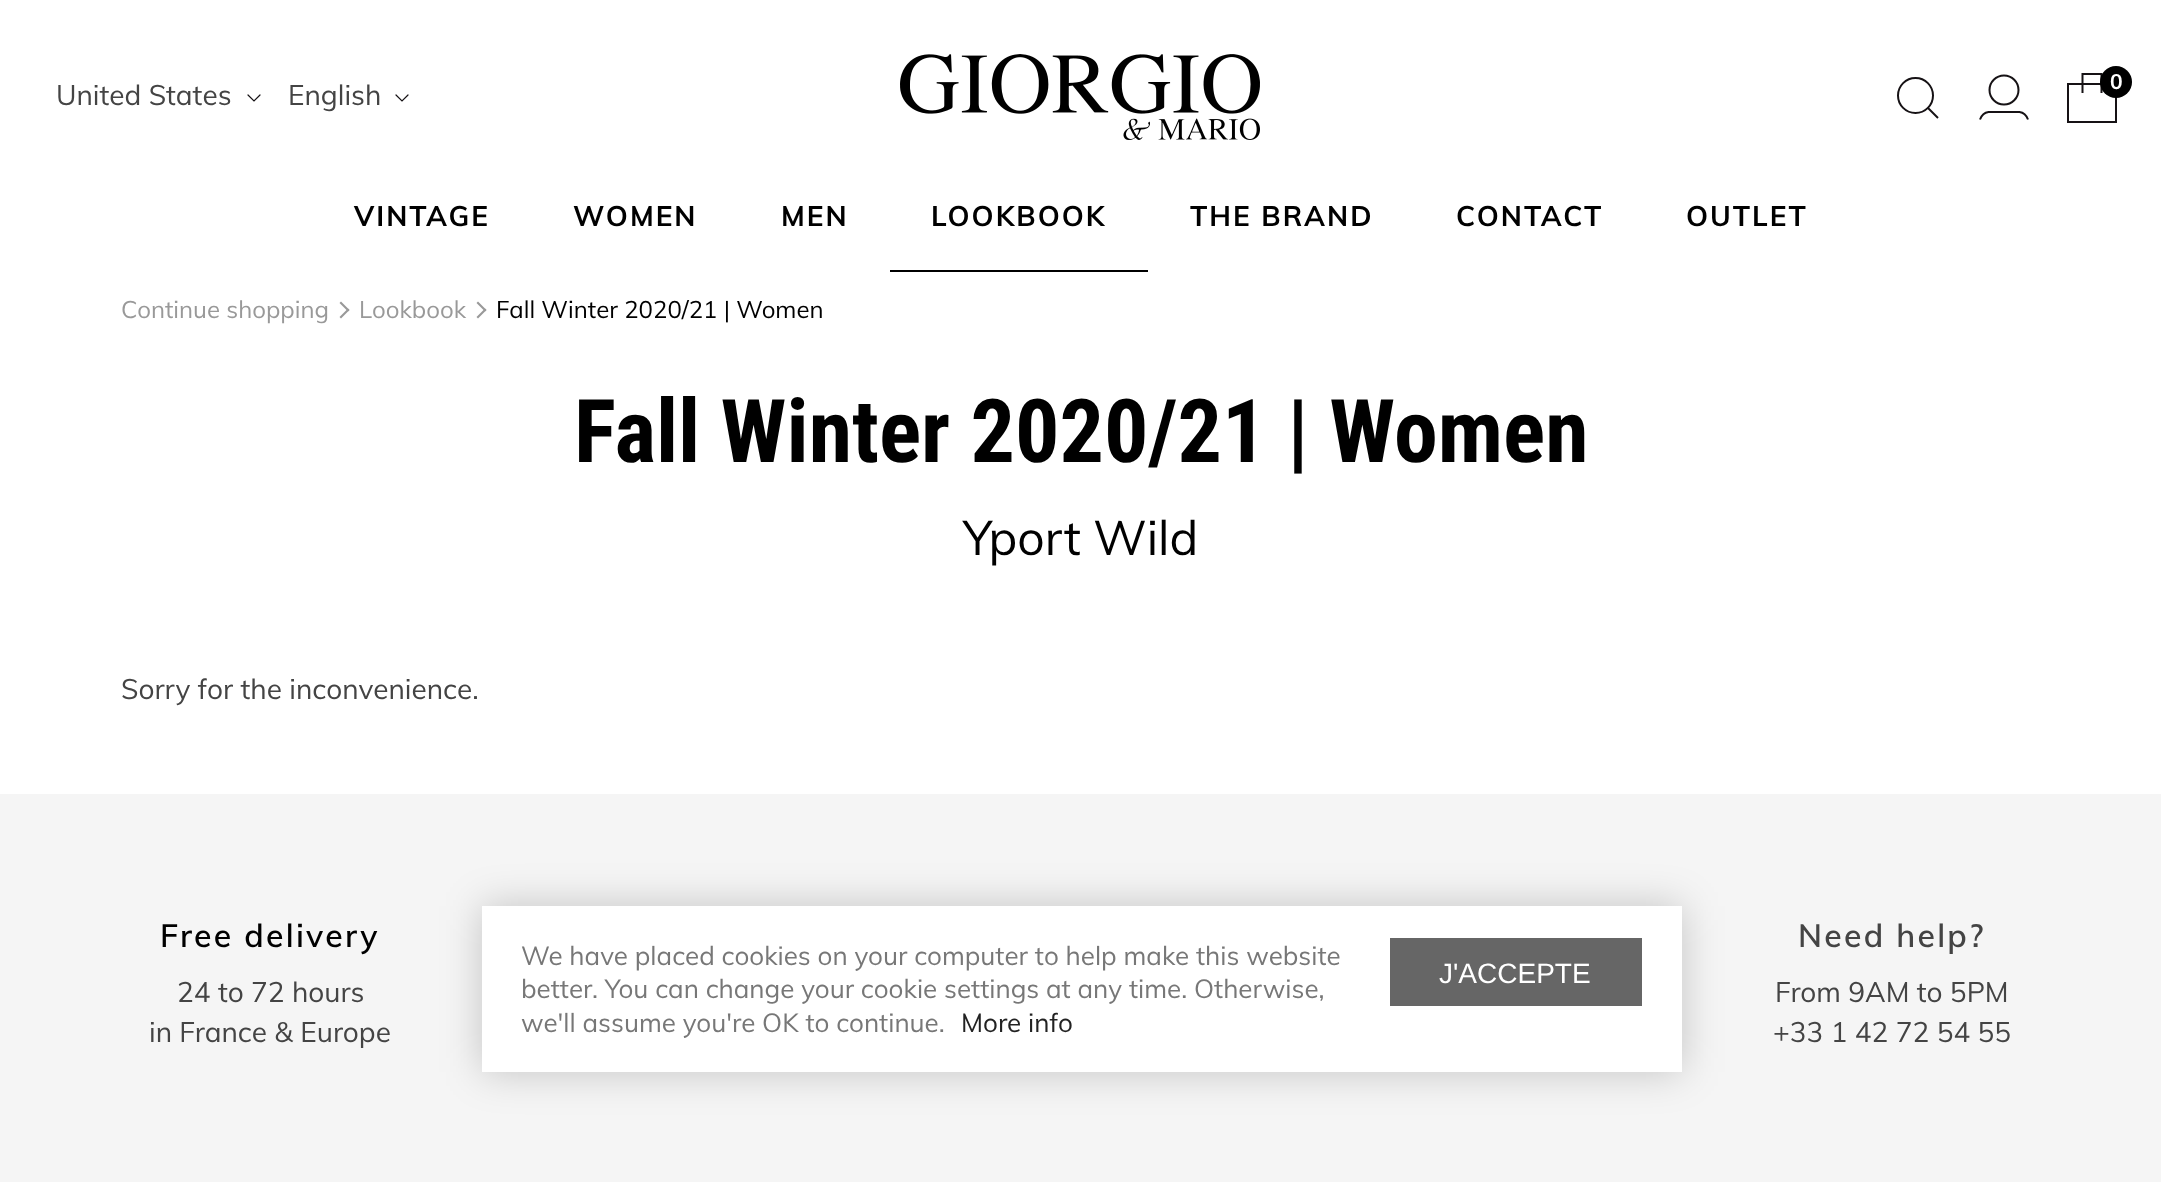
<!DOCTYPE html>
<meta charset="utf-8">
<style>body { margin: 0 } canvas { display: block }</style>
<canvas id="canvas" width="2161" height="1182"></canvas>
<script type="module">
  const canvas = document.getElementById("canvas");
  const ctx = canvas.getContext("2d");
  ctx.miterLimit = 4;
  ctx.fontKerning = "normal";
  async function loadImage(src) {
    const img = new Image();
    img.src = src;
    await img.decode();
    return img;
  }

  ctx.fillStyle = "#ffffff";
  ctx.fillRect(0, 0, 2161, 1182);
  ctx.drawImage(await loadImage("img1.png"), 900, 54, 360, 86);
  ctx.beginPath();
  ctx.arc(1915.5, 95.5, 17.5, 0, Math.PI * 2);
  ctx.strokeStyle = "#161215";
  ctx.lineWidth = 2;
  ctx.stroke();
  ctx.beginPath();
  ctx.moveTo(1927.5, 107.5);
  ctx.lineTo(1938, 118);
  ctx.stroke();
  ctx.beginPath();
  ctx.arc(2004, 90, 14.5, 0, Math.PI * 2);
  ctx.stroke();
  ctx.beginPath();
  ctx.moveTo(1980, 119.5);
  ctx.bezierCurveTo(1981.5, 115.5, 1984.5, 112.5, 1988.5, 112);
  ctx.lineTo(2019.5, 112);
  ctx.bezierCurveTo(2023.5, 112.5, 2026.5, 115.5, 2028, 119.5);
  ctx.stroke();
  ctx.strokeRect(2068, 84, 48, 38);
  ctx.beginPath();
  ctx.moveTo(2082.5, 93);
  ctx.lineTo(2082.5, 74);
  ctx.lineTo(2101.5, 74);
  ctx.lineTo(2101.5, 93);
  ctx.stroke();
  ctx.fillStyle = "#000000";
  ctx.beginPath();
  ctx.arc(2116, 82, 16, 0, Math.PI * 2);
  ctx.fill();
  ctx.font = "bold 21px Muli";
  ctx.fillStyle = "#ffffff";
  ctx.fillText("0", 2110, 89);
  ctx.font = "28px Muli";
  ctx.fillStyle = "#444444";
  ctx.fillText("United States", 56, 105);
  ctx.beginPath();
  ctx.moveTo(248, 95);
  ctx.lineTo(254, 101);
  ctx.lineTo(260, 95);
  ctx.lineWidth = 1.2;
  ctx.lineCap = "round";
  ctx.stroke();
  ctx.fillText("English", 288, 105);
  ctx.beginPath();
  ctx.moveTo(396, 95);
  ctx.lineTo(402, 101);
  ctx.lineTo(408, 95);
  ctx.stroke();
  ctx.letterSpacing = "2px";
  ctx.font = "bold 28px Muli";
  ctx.fillStyle = "#000000";
  ctx.fillText("VINTAGE", 354, 226);
  ctx.fillText("WOMEN", 573, 226);
  ctx.fillText("MEN", 781, 226);
  ctx.fillRect(890, 270, 258, 2);
  ctx.fillText("LOOKBOOK", 931, 226);
  ctx.fillText("THE BRAND", 1190, 226);
  ctx.fillText("CONTACT", 1456, 226);
  ctx.fillText("OUTLET", 1686, 226);
  ctx.letterSpacing = "0px";
  ctx.font = "24px Muli";
  ctx.fillStyle = "#999999";
  ctx.fillText("Continue shopping", 121, 318);
  ctx.beginPath();
  ctx.moveTo(339.5, 303);
  ctx.lineTo(341, 301.5);
  ctx.lineTo(349.5, 310);
  ctx.lineTo(348, 311.5);
  ctx.closePath();
  ctx.fill();
  ctx.beginPath();
  ctx.moveTo(339.5, 317);
  ctx.lineTo(348, 308.5);
  ctx.lineTo(349.5, 310);
  ctx.lineTo(341, 318.5);
  ctx.closePath();
  ctx.fill();
  ctx.fillText("Lookbook", 359, 318);
  ctx.beginPath();
  ctx.moveTo(476.5, 303);
  ctx.lineTo(478, 301.5);
  ctx.lineTo(486.5, 310);
  ctx.lineTo(485, 311.5);
  ctx.closePath();
  ctx.fill();
  ctx.beginPath();
  ctx.moveTo(476.5, 317);
  ctx.lineTo(485, 308.5);
  ctx.lineTo(486.5, 310);
  ctx.lineTo(478, 318.5);
  ctx.closePath();
  ctx.fill();
  ctx.fillStyle = "#000000";
  ctx.fillText("Fall Winter 2020/21 | Women", 496, 318);
  ctx.font = "bold 88px Roboto Condensed";
  ctx.fillText("Fall Winter 2020/21 | Women", 574, 462);
  ctx.font = "48px Muli";
  ctx.fillText("Yport Wild", 963, 555);
  ctx.font = "28px Muli";
  ctx.fillStyle = "#444444";
  ctx.fillText("Sorry for the inconvenience.", 121, 699);
  ctx.fillStyle = "#f5f5f5";
  ctx.fillRect(0, 794, 2161, 388);
  ctx.letterSpacing = "2.25px";
  ctx.font = "600 32px Muli";
  ctx.fillStyle = "#000000";
  ctx.fillText("Free delivery", 160, 947);
  ctx.letterSpacing = "0px";
  ctx.font = "28px Muli";
  ctx.fillStyle = "#444444";
  ctx.fillText("24 to 72 hours", 177, 1002);
  ctx.fillText("in France & Europe", 149, 1042);
  ctx.letterSpacing = "2.25px";
  ctx.font = "600 32px Muli";
  ctx.fillText("Need help?", 1798, 947);
  ctx.letterSpacing = "0px";
  ctx.font = "28px Muli";
  ctx.fillText("From 9AM to 5PM", 1775, 1002);
  ctx.fillText("+33 1 42 72 54 55", 1773, 1042);
  ctx.fillStyle = "rgba(0, 0, 0, 0.2)";
  ctx.filter = "blur(20px)";
  ctx.beginPath();
  ctx.rect(482, 906, 1200, 166);
  ctx.fill();
  ctx.filter = "none";
  ctx.fillStyle = "#ffffff";
  ctx.fillRect(482, 906, 1200, 166);
  ctx.font = "26px Muli";
  ctx.fillStyle = "#777777";
  ctx.fillText("We have placed cookies on your computer to help make this website", 521, 965);
  ctx.fillStyle = "#666666";
  ctx.fillRect(1390, 938, 252, 68);
  ctx.font = "28px Liberation Sans";
  ctx.fillStyle = "#ffffff";
  ctx.fillText("J'ACCEPTE", 1439, 983);
  ctx.font = "26px Muli";
  ctx.fillStyle = "#777777";
  ctx.fillText("better. You can change your cookie settings at any time. Otherwise,", 521, 998);
  ctx.fillText("we'll assume you're OK to continue.", 521, 1032);
  ctx.fillStyle = "#222222";
  ctx.fillText("More info", 961, 1032);
</script>
